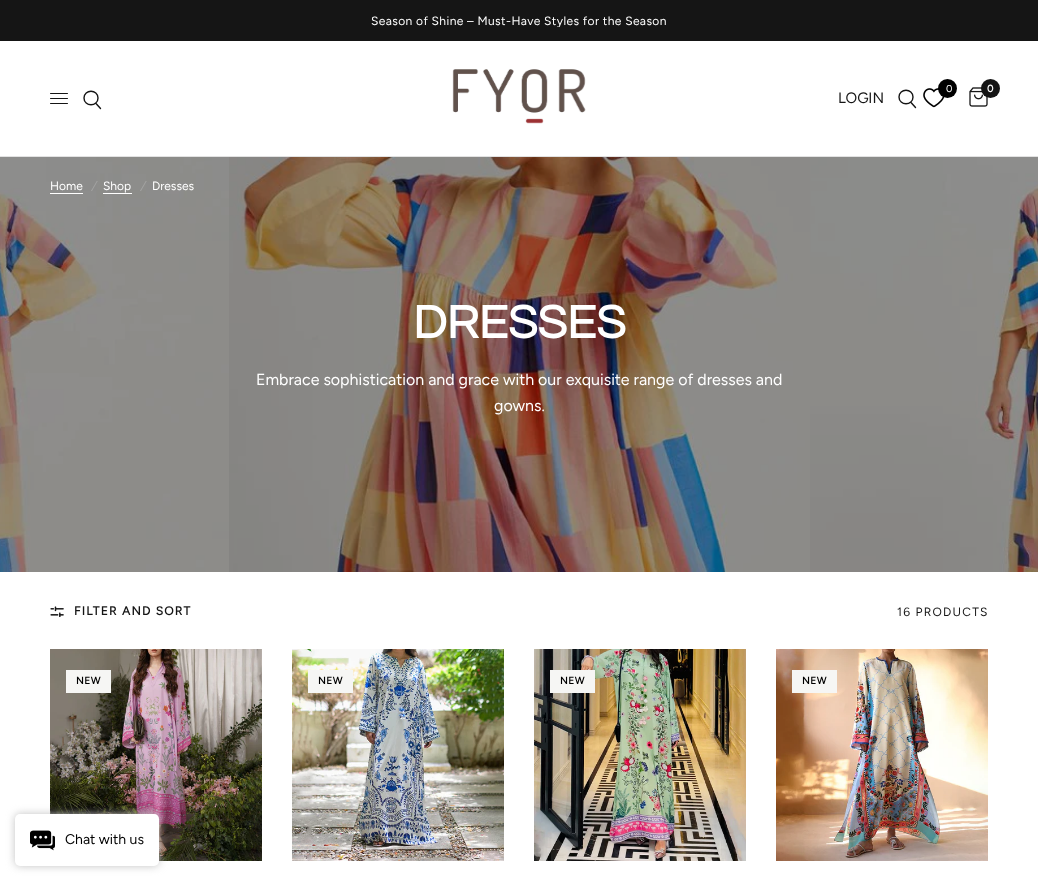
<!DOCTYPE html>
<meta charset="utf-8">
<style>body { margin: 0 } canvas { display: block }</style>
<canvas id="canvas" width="1038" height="881"></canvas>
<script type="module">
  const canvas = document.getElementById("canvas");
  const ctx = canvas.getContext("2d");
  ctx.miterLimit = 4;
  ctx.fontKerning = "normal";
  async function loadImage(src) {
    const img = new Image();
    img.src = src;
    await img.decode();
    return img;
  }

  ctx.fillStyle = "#ffffff";
  ctx.fillRect(0, 0, 1038, 881);
  ctx.fillStyle = "#151515";
  ctx.fillRect(0, 0, 1038, 41);
  ctx.save();
  ctx.beginPath();
  ctx.rect(269, 14, 500, 13);
  ctx.clip();
  ctx.letterSpacing = "0.4px";
  ctx.font = "12px Figtree";
  ctx.fillStyle = "#ffffff";
  ctx.fillText("Season of Shine – Must-Have Styles for the Season", 371, 25);
  ctx.restore();
  ctx.fillStyle = "#e2e2e2";
  ctx.fillRect(0, 156, 1038, 1);
  ctx.fillStyle = "#151515";
  ctx.beginPath();
  ctx.roundRect(50, 93, 18, 1, 0.5);
  ctx.fill();
  ctx.beginPath();
  ctx.roundRect(50, 98, 18, 1, 0.5);
  ctx.fill();
  ctx.beginPath();
  ctx.roundRect(50, 103, 18, 1, 0.5);
  ctx.fill();
  ctx.beginPath();
  ctx.moveTo(96, 103.5);
  ctx.lineTo(100.5, 108.5);
  ctx.moveTo(98, 98);
  ctx.bezierCurveTo(98, 107, 84, 107, 84, 98);
  ctx.bezierCurveTo(84, 89, 98, 89, 98, 98);
  ctx.closePath();
  ctx.strokeStyle = "#151515";
  ctx.lineWidth = 1.4;
  ctx.lineCap = "round";
  ctx.lineJoin = "round";
  ctx.stroke();
  ctx.drawImage(await loadImage("img1.png"), 452, 69, 134, 55);
  ctx.font = "15px Figtree";
  ctx.fillText("LOGIN", 838, 103);
  ctx.beginPath();
  ctx.moveTo(911, 102.5);
  ctx.lineTo(915.5, 107.5);
  ctx.moveTo(913, 97);
  ctx.bezierCurveTo(913, 106, 899, 106, 899, 97);
  ctx.bezierCurveTo(899, 88, 913, 88, 913, 97);
  ctx.closePath();
  ctx.stroke();
  ctx.drawImage(await loadImage("img2.png"), 923, 88, 22, 20);
  ctx.fillStyle = "#000000";
  ctx.beginPath();
  ctx.arc(947.5, 88.5, 9.5, 0, Math.PI * 2);
  ctx.fill();
  ctx.font = "10px Figtree";
  ctx.fillStyle = "#ffffff";
  ctx.fillText("0", 946, 92);
  ctx.drawImage(await loadImage("img3.png"), 969, 87, 19, 20);
  ctx.fillStyle = "#151515";
  ctx.beginPath();
  ctx.arc(990.5, 88.5, 9.5, 0, Math.PI * 2);
  ctx.fill();
  ctx.font = "bold 10px Figtree";
  ctx.fillStyle = "#ffffff";
  ctx.fillText("0", 987, 92);
  ctx.drawImage(await loadImage("img4.png"), 0, 157, 1038, 415);
  ctx.font = "12px Figtree";
  ctx.fillText("Home", 50, 190);
  ctx.fillRect(50, 193, 33, 1);
  ctx.font = "italic 12px Figtree";
  ctx.fillStyle = "#a3a3a2";
  ctx.fillText("/", 91, 190);
  ctx.font = "12px Figtree";
  ctx.fillStyle = "#ffffff";
  ctx.fillText("Shop", 103, 190);
  ctx.fillRect(103, 193, 29, 1);
  ctx.font = "italic 12px Figtree";
  ctx.fillStyle = "#a3a3a2";
  ctx.fillText("/", 140, 190);
  ctx.font = "12px Figtree";
  ctx.fillStyle = "#ffffff";
  ctx.fillText("Dresses", 152, 190);
  ctx.font = "bold 48px Questrial";
  ctx.fillText("DRESSES", 413, 338);
  ctx.font = "16px Figtree";
  ctx.fillText("Embrace sophistication and grace with our exquisite range of dresses and", 256, 385);
  ctx.fillText("gowns.", 494, 411);
  ctx.drawImage(await loadImage("img5.png"), 50, 606, 14, 11);
  ctx.letterSpacing = "1.25px";
  ctx.font = "bold 12px Figtree";
  ctx.fillStyle = "#151515";
  ctx.fillText("FILTER AND SORT", 74, 615);
  ctx.font = "12px Figtree";
  ctx.fillText("16 PRODUCTS", 897, 616);
  ctx.drawImage(await loadImage("img6.png"), 50, 649, 212, 212);
  ctx.fillStyle = "#f6f6f4";
  ctx.fillRect(66, 670, 45, 23);
  ctx.letterSpacing = "0.5px";
  ctx.font = "bold 10px Figtree";
  ctx.fillStyle = "#000000";
  ctx.fillText("NEW", 76, 684);
  ctx.drawImage(await loadImage("img7.png"), 292, 649, 212, 212);
  ctx.fillStyle = "#f6f6f4";
  ctx.fillRect(308, 670, 45, 23);
  ctx.fillStyle = "#000000";
  ctx.fillText("NEW", 318, 684);
  ctx.drawImage(await loadImage("img8.png"), 534, 649, 212, 212);
  ctx.fillStyle = "#f6f6f4";
  ctx.fillRect(550, 670, 45, 23);
  ctx.fillStyle = "#000000";
  ctx.fillText("NEW", 560, 684);
  ctx.drawImage(await loadImage("img9.png"), 776, 649, 212, 212);
  ctx.fillStyle = "#f6f6f4";
  ctx.fillRect(792, 670, 45, 23);
  ctx.fillStyle = "#000000";
  ctx.fillText("NEW", 802, 684);
  ctx.fillStyle = "#c2c2c2";
  ctx.filter = "blur(4px)";
  ctx.beginPath();
  ctx.roundRect(15, 814, 144, 52, 5);
  ctx.fill();
  ctx.filter = "none";
  ctx.fillStyle = "#ffffff";
  ctx.beginPath();
  ctx.roundRect(15, 814, 144, 52, 5);
  ctx.fill();
  ctx.drawImage(await loadImage("img10.png"), 30, 830, 25, 21);
  ctx.letterSpacing = "0px";
  ctx.font = "14px Figtree";
  ctx.fillStyle = "#000000";
  ctx.fillText("Chat with us", 65, 844);
</script>
